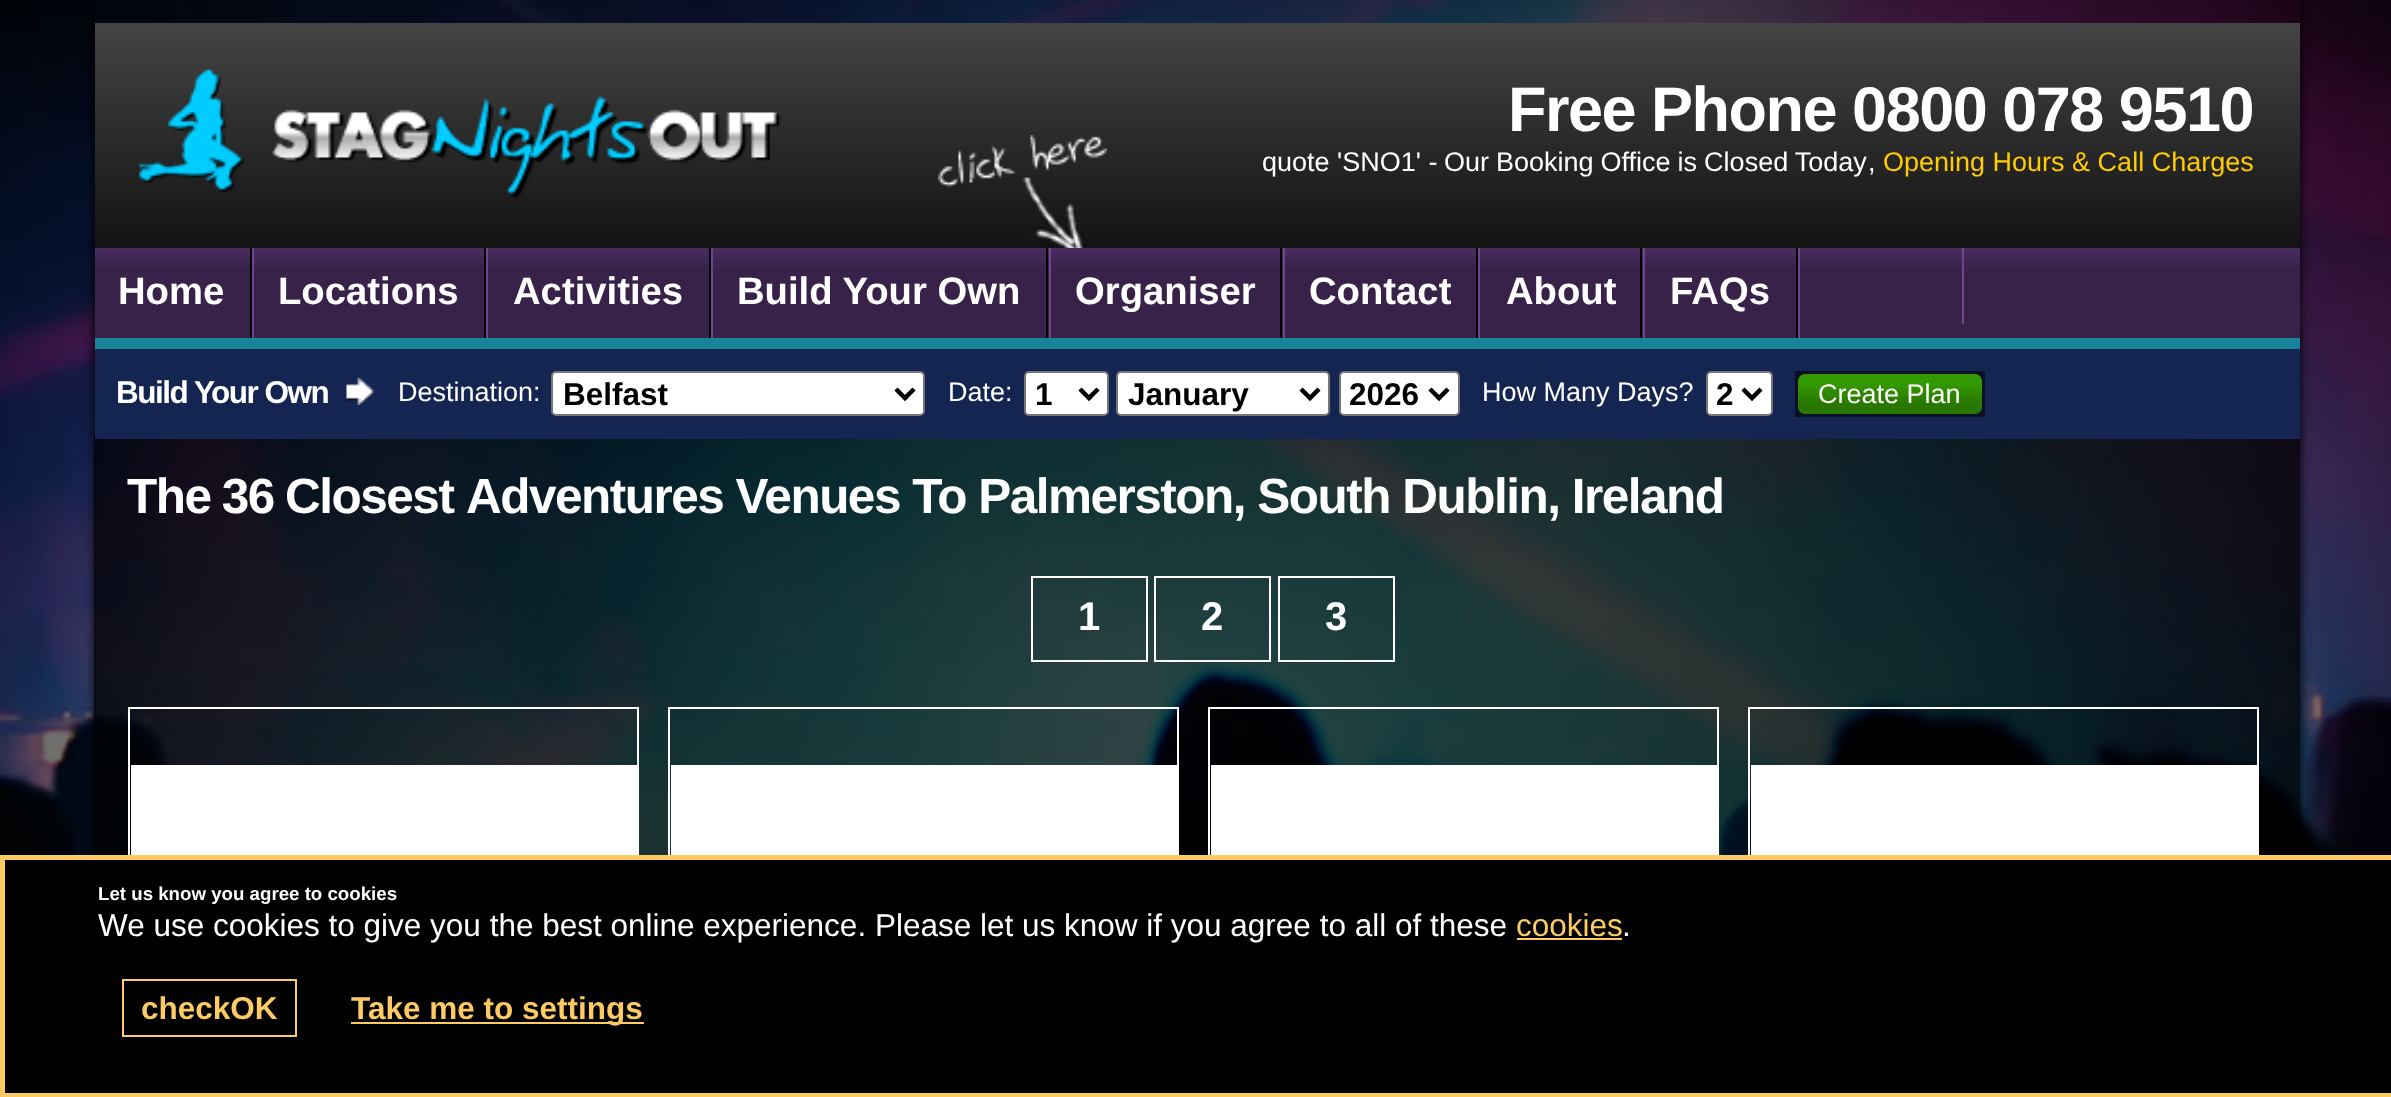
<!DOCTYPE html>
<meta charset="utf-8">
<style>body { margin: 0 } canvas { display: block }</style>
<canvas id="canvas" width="2391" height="1097"></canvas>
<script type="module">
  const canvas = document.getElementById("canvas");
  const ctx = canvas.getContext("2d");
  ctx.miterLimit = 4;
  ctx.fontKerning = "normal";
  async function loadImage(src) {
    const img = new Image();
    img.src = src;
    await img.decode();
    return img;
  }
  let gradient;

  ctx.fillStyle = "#ffffff";
  ctx.fillRect(0, 0, 2391, 1097);
  ctx.drawImage(await loadImage("img1.png"), 0, 0, 2391, 855);
  ctx.save();
  ctx.beginPath();
  ctx.moveTo(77, 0);
  ctx.lineTo(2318, 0);
  ctx.lineTo(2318, 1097);
  ctx.lineTo(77, 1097);
  ctx.closePath();
  ctx.moveTo(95, 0);
  ctx.lineTo(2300, 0);
  ctx.lineTo(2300, 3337);
  ctx.lineTo(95, 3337);
  ctx.closePath();
  ctx.clip("evenodd");
  ctx.fillStyle = "#000000";
  ctx.filter = "blur(5.5px)";
  ctx.beginPath();
  ctx.rect(95, 0, 2205, 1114);
  ctx.fill();
  ctx.filter = "none";
  ctx.restore();
  gradient = ctx.createLinearGradient(1197, 22, 1197, 434);
  gradient.addColorStop(0, "#444444");
  gradient.addColorStop(0.75, "#000000");
  ctx.fillStyle = gradient;
  ctx.fillRect(95, 23, 2205, 225);
  ctx.drawImage(await loadImage("img2.png"), 139, 69, 642, 129);
  ctx.drawImage(await loadImage("img3.png"), 938, 135, 169, 113);
  ctx.letterSpacing = "-1.5px";
  ctx.font = "bold 63px Liberation Sans";
  ctx.fillStyle = "#ffffff";
  ctx.fillText("Free Phone 0800 078 9510", 1508, 131);
  ctx.letterSpacing = "0px";
  ctx.font = "27px Liberation Sans";
  ctx.fillText("quote 'SNO1' -", 1262, 171);
  ctx.wordSpacing = "-0.5px";
  ctx.fillText("Our Booking Office is Closed Today", 1444, 171);
  ctx.wordSpacing = "0px";
  ctx.fillText(",", 1868, 171);
  ctx.fillStyle = "#ffcc00";
  ctx.fillText("Opening Hours & Call Charges", 1883, 171);
  gradient = ctx.createLinearGradient(1197, 247, 1197, 338);
  gradient.addColorStop(0, "#4a2d60");
  gradient.addColorStop(0.25, "#382249");
  ctx.fillStyle = gradient;
  ctx.fillRect(95, 248, 2205, 90);
  ctx.fillStyle = "#18839a";
  ctx.fillRect(95, 338, 2205, 11);
  ctx.fillStyle = "#714492";
  ctx.fillRect(252, 248, 2, 90);
  ctx.fillStyle = "#000000";
  ctx.fillRect(250, 248, 2, 90);
  ctx.font = "bold 38.25px Liberation Sans";
  ctx.fillStyle = "#ffffff";
  ctx.fillText("Home", 118, 304);
  ctx.fillStyle = "#714492";
  ctx.fillRect(486, 248, 2, 90);
  ctx.fillStyle = "#000000";
  ctx.fillRect(484, 248, 2, 90);
  ctx.fillStyle = "#ffffff";
  ctx.fillText("Locations", 278, 304);
  ctx.fillStyle = "#714492";
  ctx.fillRect(711, 248, 2, 90);
  ctx.fillStyle = "#000000";
  ctx.fillRect(709, 248, 2, 90);
  ctx.fillStyle = "#ffffff";
  ctx.fillText("Activities", 513, 304);
  ctx.fillStyle = "#714492";
  ctx.fillRect(1049, 248, 2, 90);
  ctx.fillStyle = "#000000";
  ctx.fillRect(1046, 248, 2, 90);
  ctx.fillStyle = "#ffffff";
  ctx.fillText("Build Your Own", 737, 304);
  ctx.fillStyle = "#714492";
  ctx.fillRect(1283, 248, 2, 90);
  ctx.fillStyle = "#000000";
  ctx.fillRect(1280, 248, 2, 90);
  ctx.fillStyle = "#ffffff";
  ctx.fillText("Organiser", 1075, 304);
  ctx.fillStyle = "#714492";
  ctx.fillRect(1478, 248, 2, 90);
  ctx.fillStyle = "#000000";
  ctx.fillRect(1476, 248, 2, 90);
  ctx.fillStyle = "#ffffff";
  ctx.fillText("Contact", 1309, 304);
  ctx.fillStyle = "#714492";
  ctx.fillRect(1643, 248, 2, 90);
  ctx.fillStyle = "#000000";
  ctx.fillRect(1640, 248, 2, 90);
  ctx.fillStyle = "#ffffff";
  ctx.fillText("About", 1506, 304);
  ctx.fillStyle = "#714492";
  ctx.fillRect(1798, 248, 2, 90);
  ctx.fillStyle = "#000000";
  ctx.fillRect(1796, 248, 2, 90);
  ctx.fillStyle = "#ffffff";
  ctx.fillText("FAQs", 1670, 304);
  ctx.fillStyle = "#714492";
  ctx.fillRect(1962, 248, 2, 76);
  ctx.fillStyle = "rgba(0, 0, 0, 0.73)";
  ctx.fillRect(94, 434, 2206, 421);
  ctx.fillStyle = "#142551";
  ctx.fillRect(95, 349, 2205, 90);
  ctx.drawImage(await loadImage("img4.png"), 346, 378, 28, 27);
  ctx.letterSpacing = "-1.5px";
  ctx.font = "bold 31.5px Liberation Sans";
  ctx.fillStyle = "#ffffff";
  ctx.fillText("Build Your Own", 116, 403);
  ctx.letterSpacing = "0px";
  ctx.font = "27px Liberation Sans";
  ctx.fillText("Destination:", 398, 401);
  ctx.beginPath();
  ctx.roundRect(552, 372, 372, 43, 4);
  ctx.fill();
  ctx.strokeStyle = "#767676";
  ctx.lineWidth = 2;
  ctx.stroke();
  ctx.beginPath();
  ctx.moveTo(896, 389);
  ctx.lineTo(905, 398);
  ctx.lineTo(914, 389);
  ctx.strokeStyle = "#000000";
  ctx.lineWidth = 4.5;
  ctx.stroke();
  ctx.font = "bold 31.5px Liberation Sans";
  ctx.fillStyle = "#000000";
  ctx.fillText("Belfast", 563, 405);
  ctx.font = "27px Liberation Sans";
  ctx.fillStyle = "#ffffff";
  ctx.fillText("Date:", 948, 401);
  ctx.beginPath();
  ctx.roundRect(1025, 372, 83, 43, 4);
  ctx.fill();
  ctx.strokeStyle = "#767676";
  ctx.lineWidth = 2;
  ctx.stroke();
  ctx.beginPath();
  ctx.moveTo(1080, 389);
  ctx.lineTo(1089, 398);
  ctx.lineTo(1098, 389);
  ctx.strokeStyle = "#000000";
  ctx.lineWidth = 4.5;
  ctx.stroke();
  ctx.font = "bold 31.5px Liberation Sans";
  ctx.fillStyle = "#000000";
  ctx.fillText("1", 1035, 405);
  ctx.fillStyle = "#ffffff";
  ctx.beginPath();
  ctx.roundRect(1117, 372, 212, 43, 4);
  ctx.fill();
  ctx.strokeStyle = "#767676";
  ctx.lineWidth = 2;
  ctx.stroke();
  ctx.beginPath();
  ctx.moveTo(1301, 389);
  ctx.lineTo(1310, 398);
  ctx.lineTo(1319, 389);
  ctx.strokeStyle = "#000000";
  ctx.lineWidth = 4.5;
  ctx.stroke();
  ctx.fillStyle = "#000000";
  ctx.fillText("January", 1128, 405);
  ctx.fillStyle = "#ffffff";
  ctx.beginPath();
  ctx.roundRect(1340, 372, 119, 43, 4);
  ctx.fill();
  ctx.strokeStyle = "#767676";
  ctx.lineWidth = 2;
  ctx.stroke();
  ctx.beginPath();
  ctx.moveTo(1430, 389);
  ctx.lineTo(1439, 398);
  ctx.lineTo(1448, 389);
  ctx.strokeStyle = "#000000";
  ctx.lineWidth = 4.5;
  ctx.stroke();
  ctx.fillStyle = "#000000";
  ctx.fillText("2026", 1349, 405);
  ctx.font = "27px Liberation Sans";
  ctx.fillStyle = "#ffffff";
  ctx.fillText("How Many Days?", 1482, 401);
  ctx.beginPath();
  ctx.roundRect(1707, 372, 65, 43, 4);
  ctx.fill();
  ctx.strokeStyle = "#767676";
  ctx.lineWidth = 2;
  ctx.stroke();
  ctx.beginPath();
  ctx.moveTo(1743, 389);
  ctx.lineTo(1752, 398);
  ctx.lineTo(1761, 389);
  ctx.strokeStyle = "#000000";
  ctx.lineWidth = 4.5;
  ctx.stroke();
  ctx.font = "bold 31.5px Liberation Sans";
  ctx.fillStyle = "#000000";
  ctx.fillText("2", 1716, 405);
  ctx.fillStyle = "#091126";
  ctx.fillRect(1795, 371, 190, 46);
  gradient = ctx.createLinearGradient(1890, 374, 1890, 414);
  gradient.addColorStop(0.25, "#339900");
  gradient.addColorStop(0.75, "#287700");
  ctx.fillStyle = gradient;
  ctx.beginPath();
  ctx.roundRect(1798, 374, 184, 40, 7);
  ctx.fill();
  ctx.font = "27px Liberation Sans";
  ctx.fillStyle = "#ffffff";
  ctx.fillText("Create Plan", 1818, 403);
  ctx.letterSpacing = "-1.5px";
  ctx.wordSpacing = "-1px";
  ctx.font = "bold 49.5px Liberation Sans";
  ctx.fillText("The 36 Closest", 127, 513);
  ctx.wordSpacing = "0px";
  ctx.fillText("Adventures Venues To Palmerston, South Dublin, Ireland", 466, 513);
  ctx.strokeStyle = "#ffffff";
  ctx.lineWidth = 2;
  ctx.strokeRect(1032, 577, 115, 84);
  ctx.letterSpacing = "0px";
  ctx.font = "bold 40px Liberation Sans";
  ctx.fillText("1", 1078, 630);
  ctx.strokeRect(1155, 577, 115, 84);
  ctx.fillText("2", 1201, 630);
  ctx.strokeRect(1279, 577, 115, 84);
  ctx.fillText("3", 1325, 630);
  ctx.strokeRect(129, 708, 509, 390);
  ctx.fillRect(131, 765, 506, 90);
  ctx.strokeRect(669, 708, 509, 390);
  ctx.fillRect(671, 765, 506, 90);
  ctx.strokeRect(1209, 708, 509, 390);
  ctx.fillRect(1211, 765, 506, 90);
  ctx.strokeRect(1749, 708, 509, 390);
  ctx.fillRect(1751, 765, 506, 90);
  ctx.fillStyle = "#000000";
  ctx.beginPath();
  ctx.rect(2.5, 857.5, 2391, 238);
  ctx.fill();
  ctx.strokeStyle = "#feca64";
  ctx.lineWidth = 5;
  ctx.stroke();
  ctx.font = "bold 18.7px Liberation Sans";
  ctx.fillStyle = "#ffffff";
  ctx.fillText("Let us know you agree to cookies", 98, 900);
  ctx.font = "31.5px Liberation Sans";
  ctx.fillText("We use cookies to give you the best online experience. Please let us know if you agree to all of these", 98, 936);
  ctx.fillStyle = "#feca64";
  ctx.fillText("cookies", 1516, 936);
  ctx.fillRect(1517, 938, 105, 2);
  ctx.fillStyle = "#ffffff";
  ctx.fillText(".", 1622, 936);
  ctx.lineWidth = 2;
  ctx.strokeRect(123, 980, 173, 56);
  ctx.font = "bold 31.5px Liberation Sans";
  ctx.fillStyle = "#feca64";
  ctx.fillText("checkOK", 141, 1019);
  ctx.fillRect(351, 1022, 293, 2);
  ctx.fillText("Take me to settings", 351, 1019);
</script>
